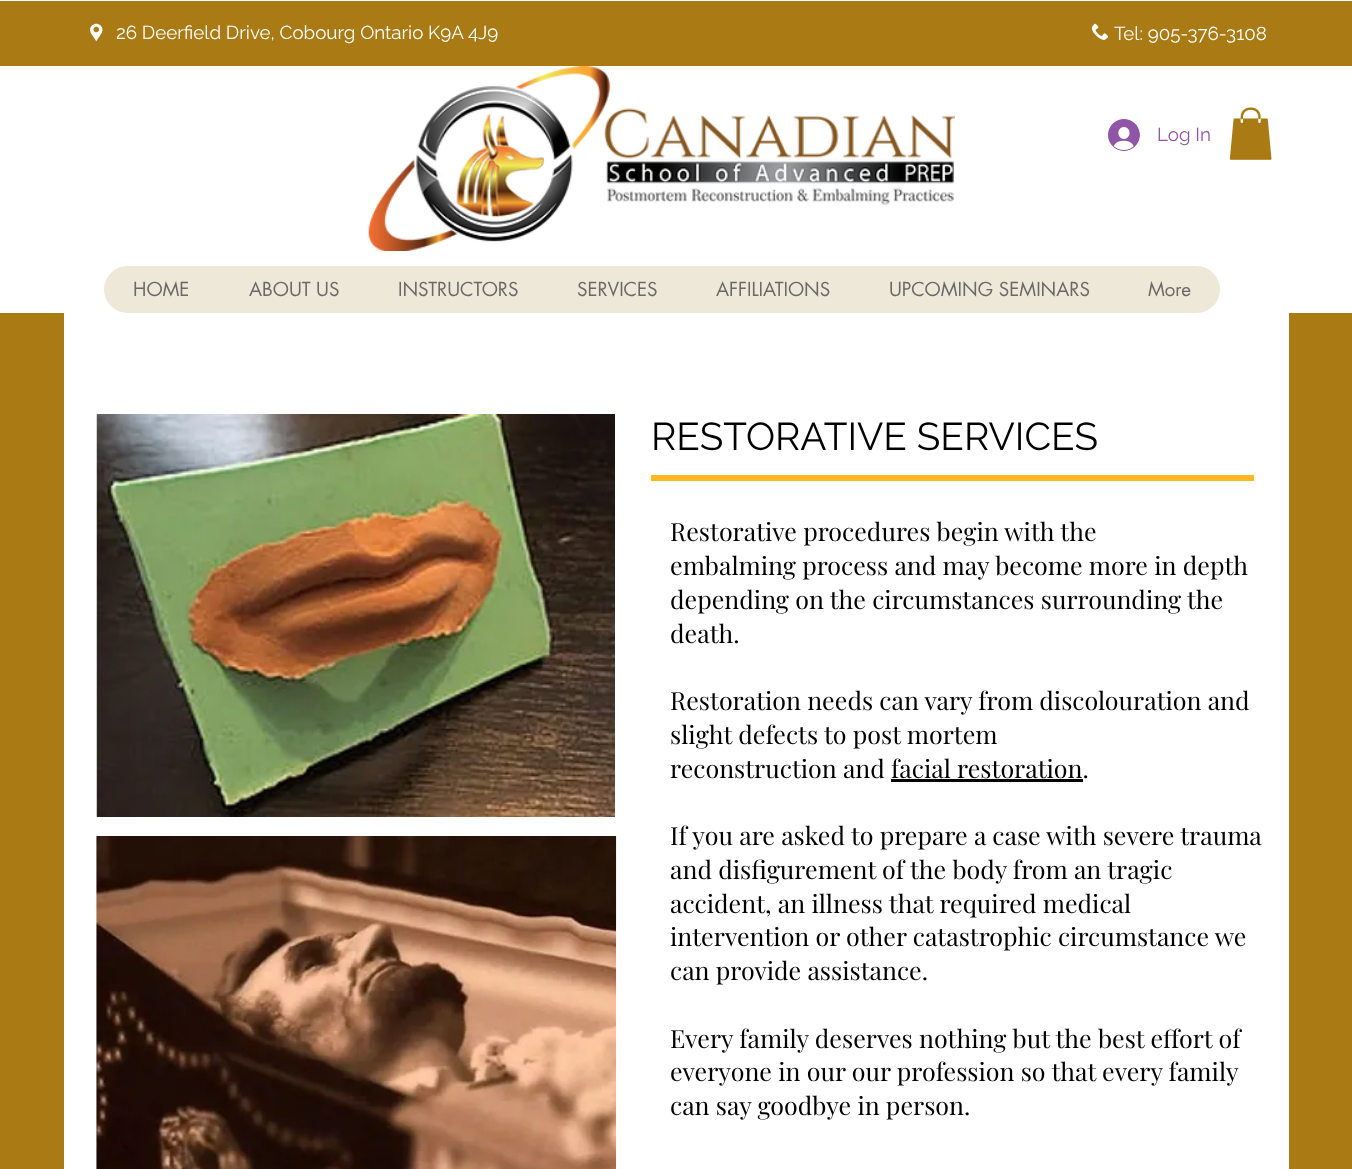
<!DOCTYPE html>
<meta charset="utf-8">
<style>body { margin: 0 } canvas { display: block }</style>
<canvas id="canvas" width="1352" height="1169"></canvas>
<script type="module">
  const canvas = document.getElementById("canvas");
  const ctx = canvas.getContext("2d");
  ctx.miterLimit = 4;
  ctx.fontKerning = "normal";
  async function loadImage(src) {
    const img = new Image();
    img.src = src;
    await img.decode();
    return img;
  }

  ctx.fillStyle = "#aa7b15";
  ctx.fillRect(0, 0, 1352, 1169);
  ctx.fillStyle = "#ffffff";
  ctx.fillRect(0, 0, 1352, 313);
  ctx.fillStyle = "#aa7b15";
  ctx.fillRect(0, 1, 1352, 65);
  ctx.drawImage(await loadImage("img1.png"), 90, 23, 13, 19);
  ctx.font = "18.75px Raleway";
  ctx.fillStyle = "#ffffff";
  ctx.fillText("26 Deerfield Drive, Cobourg Ontario K9A 4J9", 116, 39);
  ctx.drawImage(await loadImage("img2.png"), 1091, 23, 18, 17);
  ctx.fillText("Tel: 905-376-3108", 1114, 40);
  ctx.drawImage(await loadImage("img3.png"), 368, 66, 587, 185);
  ctx.drawImage(await loadImage("img4.png"), 1108, 119, 32, 32);
  ctx.fillStyle = "#9155a7";
  ctx.fillText("Log In", 1157, 141);
  ctx.drawImage(await loadImage("img5.png"), 1229, 107, 43, 53);
  ctx.fillStyle = "#eee8d8";
  ctx.beginPath();
  ctx.roundRect(104, 266, 1116, 47, 23.5);
  ctx.fill();
  ctx.font = "18.75px futura";
  ctx.fillStyle = "#696969";
  ctx.fillText("HOME", 133, 296);
  ctx.fillText("ABOUT US", 249, 296);
  ctx.fillText("INSTRUCTORS", 398, 296);
  ctx.fillText("SERVICES", 577, 296);
  ctx.fillText("AFFILIATIONS", 716, 296);
  ctx.fillText("UPCOMING SEMINARS", 889, 296);
  ctx.fillText("More", 1148, 296);
  ctx.fillStyle = "#ffffff";
  ctx.fillRect(64, 313, 1225, 856);
  ctx.drawImage(await loadImage("img6.png"), 96, 414, 519, 403);
  ctx.font = "38.75px Raleway";
  ctx.fillStyle = "#000000";
  ctx.fillText("RESTORATIVE SERVICES", 651, 450);
  ctx.fillStyle = "#ffb81f";
  ctx.fillRect(651, 475, 603, 6);
  ctx.drawImage(await loadImage("img7.png"), 96, 836, 521, 333);
  ctx.font = "25px Playfair Display";
  ctx.fillStyle = "#000000";
  ctx.fillText("Restorative procedures begin with the", 670, 541);
  ctx.fillText("embalming process and may become more in depth", 670, 575);
  ctx.fillText("depending on the circumstances surrounding the", 670, 609);
  ctx.fillText("death.", 670, 643);
  ctx.fillText("Restoration needs can vary from discolouration and", 670, 710);
  ctx.fillText("slight defects to post mortem", 670, 744);
  ctx.fillText("reconstruction and facial restoration.", 670, 778);
  ctx.fillRect(891, 779, 192, 3);
  ctx.fillText("If you are asked to prepare a case with severe trauma", 670, 845);
  ctx.fillText("and disfigurement of the body from an tragic", 670, 879);
  ctx.fillText("accident, an illness that required medical", 670, 913);
  ctx.fillText("intervention or other catastrophic circumstance we", 670, 946);
  ctx.fillText("can provide assistance.", 670, 980);
  ctx.fillText("Every family deserves nothing but the best effort of", 670, 1048);
  ctx.fillText("everyone in our our profession so that every family", 670, 1081);
  ctx.fillText("can say goodbye in person.", 670, 1115);
</script>
